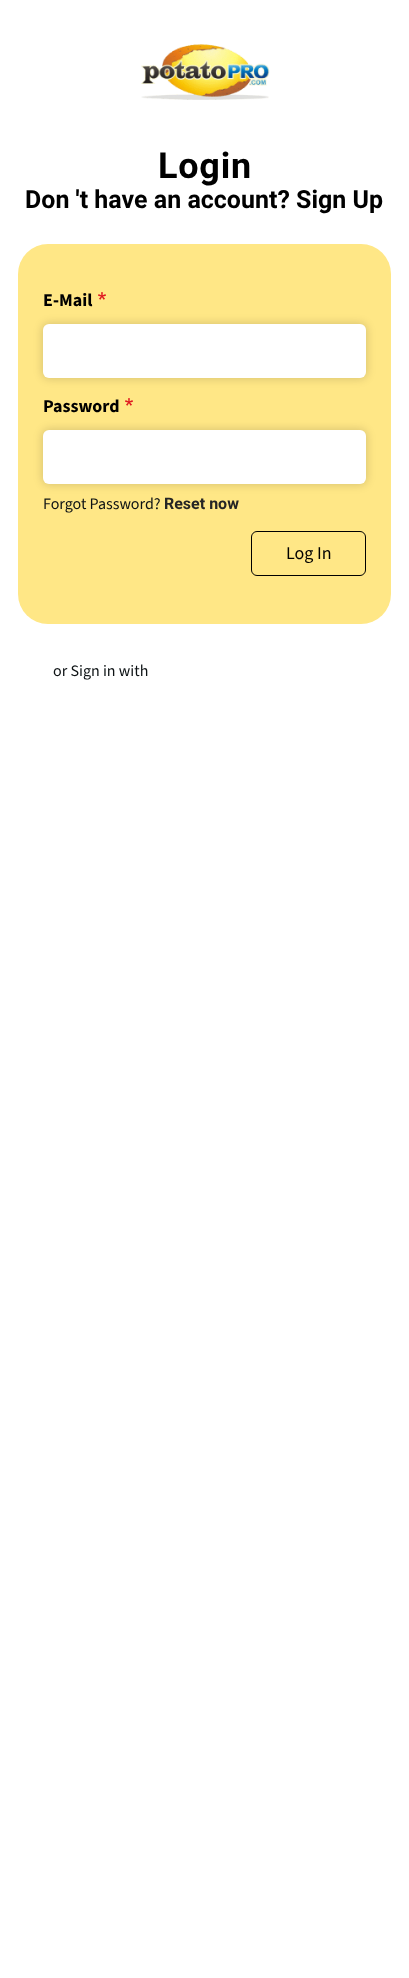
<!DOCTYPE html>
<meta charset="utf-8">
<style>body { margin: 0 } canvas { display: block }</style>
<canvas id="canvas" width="409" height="1978"></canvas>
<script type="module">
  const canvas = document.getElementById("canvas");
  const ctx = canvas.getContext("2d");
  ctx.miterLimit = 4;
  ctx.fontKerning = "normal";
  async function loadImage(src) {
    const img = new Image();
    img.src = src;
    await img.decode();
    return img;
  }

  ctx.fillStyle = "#ffffff";
  ctx.fillRect(0, 0, 409, 1978);
  ctx.drawImage(await loadImage("img1.png"), 141, 44, 129, 56);
  ctx.letterSpacing = "0.75px";
  ctx.font = "bold 36px Roboto";
  ctx.fillStyle = "#000000";
  ctx.fillText("Login", 158, 178);
  ctx.letterSpacing = "0px";
  ctx.font = "bold 25px Roboto";
  ctx.fillText("Don 't have an account? Sign Up", 25, 208);
  ctx.fillStyle = "#ffe786";
  ctx.beginPath();
  ctx.roundRect(18, 244, 373, 380, 30);
  ctx.fill();
  ctx.font = "200 18px 'Source Sans 3'";
  ctx.fillStyle = "#000000";
  ctx.fillText("E", 43, 306);
  ctx.font = "bold 18px Liberation Sans";
  ctx.fillText("-", 53, 306);
  ctx.font = "200 18px 'Source Sans 3'";
  ctx.fillText("Mail", 59, 306);
  ctx.drawImage(await loadImage("img2.png"), 98, 292, 8, 8);
  ctx.fillStyle = "rgba(0, 0, 0, 0.15)";
  ctx.filter = "blur(4px)";
  ctx.beginPath();
  ctx.roundRect(42, 323, 325, 56, 7);
  ctx.fill();
  ctx.filter = "none";
  ctx.fillStyle = "#ffffff";
  ctx.beginPath();
  ctx.roundRect(43, 324, 323, 54, 6);
  ctx.fill();
  ctx.fillStyle = "#000000";
  ctx.fillText("Password", 43, 412);
  ctx.drawImage(await loadImage("img2.png"), 125, 398, 8, 8);
  ctx.fillStyle = "rgba(0, 0, 0, 0.15)";
  ctx.filter = "blur(4px)";
  ctx.beginPath();
  ctx.roundRect(42, 429, 325, 56, 7);
  ctx.fill();
  ctx.filter = "none";
  ctx.fillStyle = "#ffffff";
  ctx.beginPath();
  ctx.roundRect(43, 430, 323, 54, 6);
  ctx.fill();
  ctx.font = "16px 'Source Sans 3'";
  ctx.fillStyle = "#0d1214";
  ctx.fillText("Forgot Password?", 43, 509);
  ctx.font = "bold 16px Roboto";
  ctx.fillStyle = "#252525";
  ctx.fillText("Reset now", 164, 509);
  ctx.beginPath();
  ctx.roundRect(251.5, 531.5, 114, 44, 5.5);
  ctx.strokeStyle = "#000000";
  ctx.stroke();
  ctx.font = "18px 'Source Sans 3'";
  ctx.fillStyle = "#000000";
  ctx.fillText("Log In", 286, 559);
  ctx.font = "16px 'Source Sans 3'";
  ctx.fillStyle = "#0d1214";
  ctx.fillText("or Sign in with", 53, 676);
</script>
